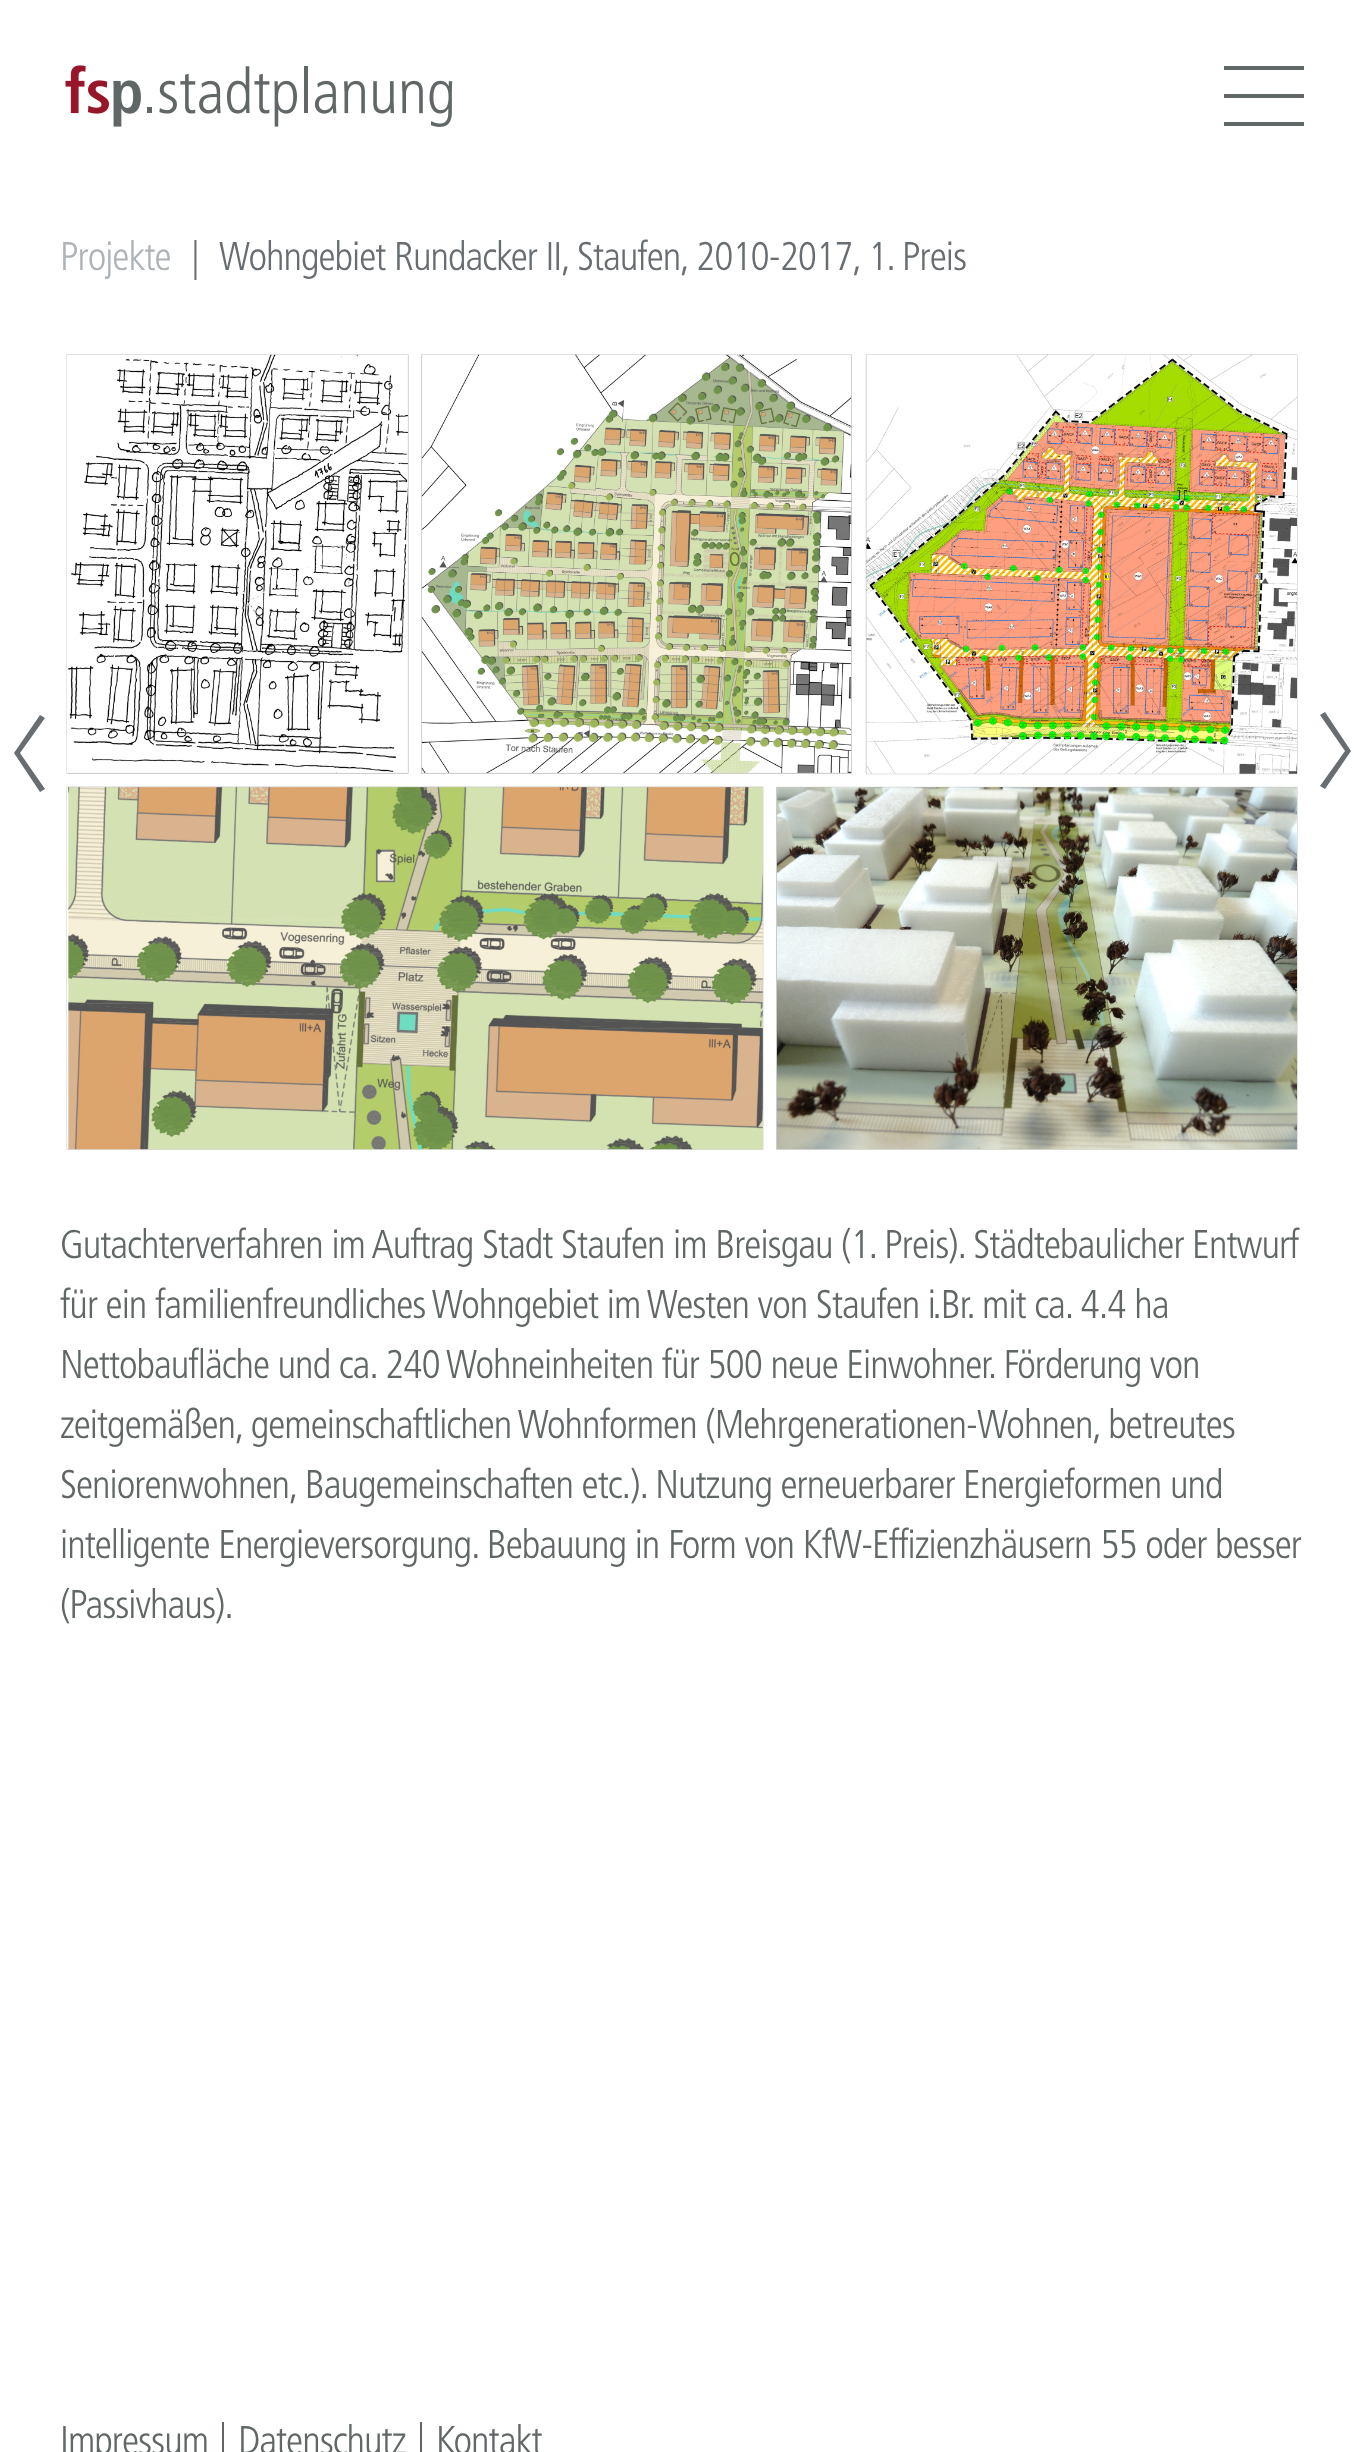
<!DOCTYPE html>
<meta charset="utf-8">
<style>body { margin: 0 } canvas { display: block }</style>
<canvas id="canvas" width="1363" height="2452"></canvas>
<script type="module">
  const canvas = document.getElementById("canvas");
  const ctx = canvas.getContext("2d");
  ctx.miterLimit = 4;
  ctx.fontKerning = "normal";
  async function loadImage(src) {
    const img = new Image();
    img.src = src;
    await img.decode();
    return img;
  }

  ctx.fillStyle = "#ffffff";
  ctx.fillRect(0, 0, 1363, 2452);
  ctx.fillStyle = "#616767";
  ctx.fillRect(1224, 66, 80, 4);
  ctx.fillRect(1224, 94, 80, 4);
  ctx.fillRect(1224, 122, 80, 4);
  ctx.drawImage(await loadImage("img1.png"), 65, 65, 388, 62);
  ctx.letterSpacing = "-1px";
  ctx.font = "300 40px 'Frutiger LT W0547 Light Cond'";
  ctx.fillStyle = "#adb3b7";
  ctx.fillText("Projekte", 60, 270);
  ctx.fillStyle = "#676d71";
  ctx.fillText("|", 191, 270);
  ctx.fillText("Wohngebiet Rundacker II, Staufen, 2010-2017, 1. Preis", 219, 270);
  ctx.drawImage(await loadImage("img2.png"), 66, 354, 1232, 796);
  ctx.beginPath();
  ctx.moveTo(40, 792);
  ctx.lineTo(45, 789);
  ctx.lineTo(20, 753);
  ctx.lineTo(45, 718);
  ctx.lineTo(40, 715);
  ctx.lineTo(14, 753);
  ctx.closePath();
  ctx.fill();
  ctx.beginPath();
  ctx.moveTo(1325, 712);
  ctx.lineTo(1320, 715);
  ctx.lineTo(1345, 751);
  ctx.lineTo(1320, 786);
  ctx.lineTo(1325, 789);
  ctx.lineTo(1351, 751);
  ctx.closePath();
  ctx.fill();
  ctx.fillStyle = "#616767";
  ctx.fillText("Gutachterverfahren im Auftrag Stadt Staufen im Breisgau (1. Preis). Städtebaulicher Entwurf", 60, 1258);
  ctx.fillText("für ein familienfreundliches Wohngebiet im Westen von Staufen i.Br. mit ca. 4.4 ha", 60, 1318);
  ctx.fillText("Nettobaufläche und ca. 240 Wohneinheiten für 500 neue Einwohner. Förderung von", 60, 1378);
  ctx.fillText("zeitgemäßen, gemeinschaftlichen Wohnformen (Mehrgenerationen-Wohnen, betreutes", 60, 1438);
  ctx.fillText("Seniorenwohnen, Baugemeinschaften etc.). Nutzung erneuerbarer Energieformen und", 60, 1498);
  ctx.fillText("intelligente Energieversorgung. Bebauung in Form von KfW-Effizienzhäusern 55 oder besser", 60, 1558);
  ctx.fillText("(Passivhaus).", 60, 1618);
  ctx.fillRect(222, 2422, 2, 30);
  ctx.fillText("Impressum", 60, 2454);
  ctx.fillRect(420, 2422, 2, 30);
  ctx.fillText("Datenschutz", 238, 2454);
  ctx.fillText("Kontakt", 436, 2454);
</script>
